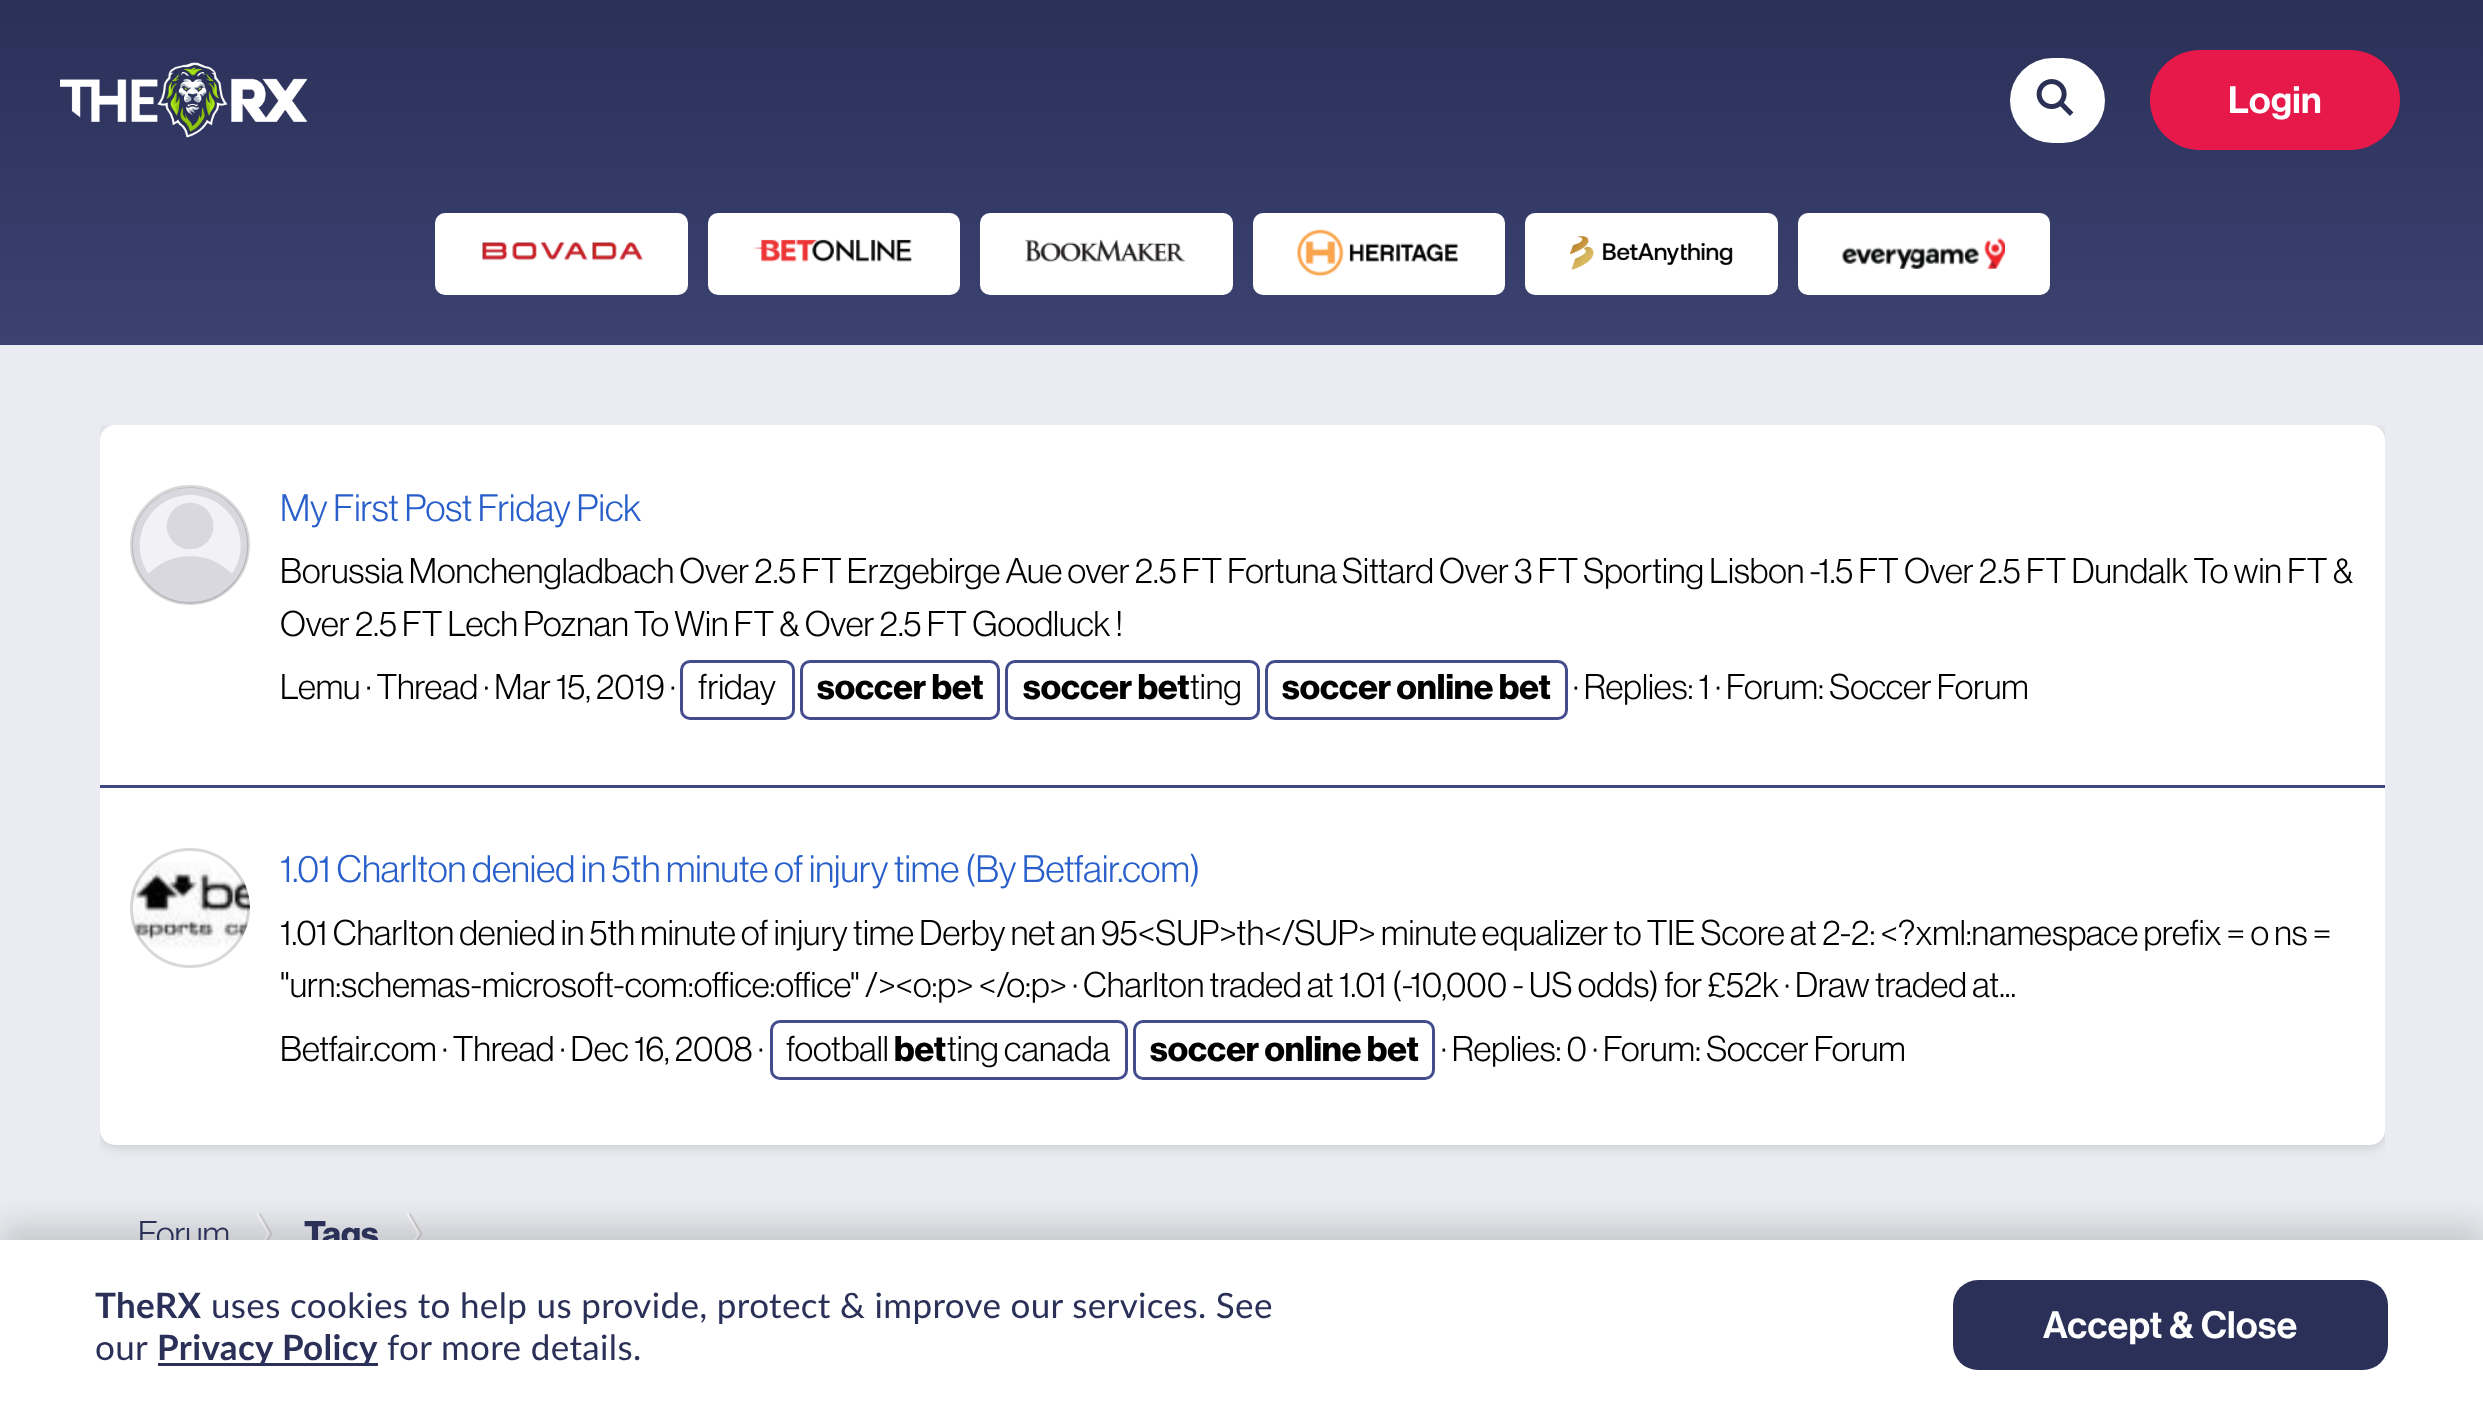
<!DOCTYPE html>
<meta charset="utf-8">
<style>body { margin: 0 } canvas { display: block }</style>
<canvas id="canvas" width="2483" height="1420"></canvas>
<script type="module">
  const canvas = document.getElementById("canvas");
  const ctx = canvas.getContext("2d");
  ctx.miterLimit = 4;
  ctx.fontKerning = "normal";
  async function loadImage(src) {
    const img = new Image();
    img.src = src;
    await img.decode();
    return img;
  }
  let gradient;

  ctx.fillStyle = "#ebecf1";
  ctx.fillRect(0, 0, 2483, 1420);
  gradient = ctx.createLinearGradient(1243, 0, 1243, 345);
  gradient.addColorStop(0, "#2a3058");
  gradient.addColorStop(1, "#3b4271");
  ctx.fillStyle = gradient;
  ctx.fillRect(0, 0, 2483, 345);
  ctx.drawImage(await loadImage("img1.png"), 60, 62, 248, 76);
  ctx.fillStyle = "#ffffff";
  ctx.beginPath();
  ctx.roundRect(2010, 58, 95, 85, 42.5);
  ctx.fill();
  ctx.drawImage(await loadImage("img2.png"), 2036, 79, 38, 37);
  ctx.fillStyle = "#e7184a";
  ctx.beginPath();
  ctx.roundRect(2150, 50, 250, 100, 50);
  ctx.fill();
  ctx.letterSpacing = "0.4px";
  ctx.font = "500 37.5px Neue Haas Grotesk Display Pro";
  ctx.fillStyle = "#ffffff";
  ctx.fillText("Login", 2228, 113);
  ctx.beginPath();
  ctx.roundRect(435, 213, 253, 82, 10);
  ctx.fill();
  ctx.drawImage(await loadImage("img3.png"), 482, 242, 161, 19);
  ctx.beginPath();
  ctx.roundRect(708, 213, 252, 82, 10);
  ctx.fill();
  ctx.drawImage(await loadImage("img4.png"), 753, 239, 159, 23);
  ctx.beginPath();
  ctx.roundRect(980, 213, 253, 82, 10);
  ctx.fill();
  ctx.drawImage(await loadImage("img5.png"), 1025, 239, 161, 23);
  ctx.beginPath();
  ctx.roundRect(1253, 213, 252, 82, 10);
  ctx.fill();
  ctx.drawImage(await loadImage("img6.png"), 1297, 229, 161, 48);
  ctx.beginPath();
  ctx.roundRect(1525, 213, 253, 82, 10);
  ctx.fill();
  ctx.drawImage(await loadImage("img7.png"), 1570, 236, 163, 34);
  ctx.beginPath();
  ctx.roundRect(1798, 213, 252, 82, 10);
  ctx.fill();
  ctx.drawImage(await loadImage("img8.png"), 1842, 237, 163, 32);
  ctx.fillStyle = "#fbfbfc";
  ctx.beginPath();
  ctx.moveTo(256, 1213.5);
  ctx.lineTo(258.5, 1213.5);
  ctx.lineTo(270, 1233.5);
  ctx.lineTo(267.5, 1233.5);
  ctx.closePath();
  ctx.fill();
  ctx.fillStyle = "rgba(204, 204, 204, 0.8)";
  ctx.beginPath();
  ctx.moveTo(258.5, 1213.5);
  ctx.lineTo(261, 1213.5);
  ctx.lineTo(272.5, 1233.5);
  ctx.lineTo(270, 1233.5);
  ctx.closePath();
  ctx.fill();
  ctx.fillStyle = "#fbfbfc";
  ctx.beginPath();
  ctx.moveTo(267.5, 1233.5);
  ctx.lineTo(270, 1233.5);
  ctx.lineTo(258.5, 1253.5);
  ctx.lineTo(256, 1253.5);
  ctx.closePath();
  ctx.fill();
  ctx.fillStyle = "rgba(204, 204, 204, 0.8)";
  ctx.beginPath();
  ctx.moveTo(270, 1233.5);
  ctx.lineTo(272.5, 1233.5);
  ctx.lineTo(261, 1253.5);
  ctx.lineTo(258.5, 1253.5);
  ctx.closePath();
  ctx.fill();
  ctx.fillStyle = "#fbfbfc";
  ctx.beginPath();
  ctx.moveTo(406, 1213.5);
  ctx.lineTo(408.5, 1213.5);
  ctx.lineTo(420, 1233.5);
  ctx.lineTo(417.5, 1233.5);
  ctx.closePath();
  ctx.fill();
  ctx.fillStyle = "rgba(204, 204, 204, 0.8)";
  ctx.beginPath();
  ctx.moveTo(408.5, 1213.5);
  ctx.lineTo(411, 1213.5);
  ctx.lineTo(422.5, 1233.5);
  ctx.lineTo(420, 1233.5);
  ctx.closePath();
  ctx.fill();
  ctx.fillStyle = "#fbfbfc";
  ctx.beginPath();
  ctx.moveTo(417.5, 1233.5);
  ctx.lineTo(420, 1233.5);
  ctx.lineTo(408.5, 1253.5);
  ctx.lineTo(406, 1253.5);
  ctx.closePath();
  ctx.fill();
  ctx.fillStyle = "rgba(204, 204, 204, 0.8)";
  ctx.beginPath();
  ctx.moveTo(420, 1233.5);
  ctx.lineTo(422.5, 1233.5);
  ctx.lineTo(411, 1253.5);
  ctx.lineTo(408.5, 1253.5);
  ctx.closePath();
  ctx.fill();
  ctx.fillStyle = "rgba(0, 0, 0, 0.15)";
  ctx.filter = "blur(15px)";
  ctx.beginPath();
  ctx.rect(0, 1225, 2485, 180);
  ctx.fill();
  ctx.filter = "none";
  ctx.letterSpacing = "0px";
  ctx.font = "35px Neue Haas Grotesk Display Pro";
  ctx.fillStyle = "#2a3058";
  ctx.fillText("Forum", 138, 1246);
  ctx.font = "bold 35px Neue Haas Grotesk Display Pro";
  ctx.fillText("Tags", 304, 1246);
  ctx.fillStyle = "#ffffff";
  ctx.fillRect(0, 1240, 2483, 180);
  ctx.letterSpacing = "0.35px";
  ctx.font = "bold 35px Lato";
  ctx.fillStyle = "#2a3058";
  ctx.fillText("TheRX", 95, 1318);
  ctx.font = "35px Lato";
  ctx.fillText("uses cookies to help us provide, protect & improve our services. See", 211, 1318);
  ctx.fillText("our", 95, 1360);
  ctx.fillRect(158, 1363, 220, 3);
  ctx.font = "bold 35px Lato";
  ctx.fillText("Privacy Policy", 157, 1360);
  ctx.font = "35px Lato";
  ctx.fillText("for more details.", 387, 1360);
  ctx.beginPath();
  ctx.roundRect(1953, 1280, 435, 90, 25);
  ctx.fill();
  ctx.letterSpacing = "0.4px";
  ctx.font = "500 37.5px Neue Haas Grotesk Display Pro";
  ctx.fillStyle = "#ffffff";
  ctx.fillText("Accept & Close", 2043, 1338);
  ctx.save();
  ctx.beginPath();
  ctx.rect(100, 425, 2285, 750);
  ctx.clip();
  ctx.fillStyle = "rgba(0, 0, 0, 0.08)";
  ctx.filter = "blur(4px)";
  ctx.beginPath();
  ctx.roundRect(100, 428, 2285, 720, 15);
  ctx.fill();
  ctx.filter = "none";
  ctx.fillStyle = "rgba(0, 0, 0, 0.06)";
  ctx.filter = "blur(10px)";
  ctx.beginPath();
  ctx.roundRect(100, 425, 2285, 720, 15);
  ctx.fill();
  ctx.filter = "none";
  ctx.restore();
  ctx.beginPath();
  ctx.roundRect(100, 425, 2285, 720, 15);
  ctx.fill();
  ctx.drawImage(await loadImage("img9.png"), 132, 487, 117, 117);
  ctx.beginPath();
  ctx.arc(190, 545, 58.5, 0, Math.PI * 2);
  ctx.strokeStyle = "rgba(0, 0, 0, 0.15)";
  ctx.lineWidth = 3;
  ctx.stroke();
  ctx.letterSpacing = "0px";
  ctx.font = "37.5px Neue Haas Grotesk Display Pro";
  ctx.fillStyle = "#285fca";
  ctx.fillText("My First Post Friday Pick", 280, 521);
  ctx.font = "35px Neue Haas Grotesk Display Pro";
  ctx.fillStyle = "#000000";
  ctx.fillText("Borussia Monchengladbach Over 2.5 FT Erzgebirge Aue over 2.5 FT Fortuna Sittard Over 3 FT Sporting Lisbon -1.5 FT Over 2.5 FT Dundalk To win FT &", 280, 583);
  ctx.fillText("Over 2.5 FT Lech Poznan To Win FT & Over 2.5 FT Goodluck !", 280, 636);
  ctx.fillText("Lemu · Thread · Mar 15, 2019 ·", 280, 699);
  ctx.beginPath();
  ctx.roundRect(681.5, 661.5, 112, 57, 8.5);
  ctx.strokeStyle = "#434c8c";
  ctx.stroke();
  ctx.fillText("friday", 698, 699);
  ctx.beginPath();
  ctx.roundRect(801.5, 661.5, 197, 57, 8.5);
  ctx.stroke();
  ctx.font = "bold 35px Neue Haas Grotesk Display Pro";
  ctx.fillText("soccer bet", 817, 699);
  ctx.beginPath();
  ctx.roundRect(1006.5, 661.5, 252, 57, 8.5);
  ctx.stroke();
  ctx.fillText("soccer bet", 1023, 699);
  ctx.font = "35px Neue Haas Grotesk Display Pro";
  ctx.fillText("ting", 1190, 699);
  ctx.beginPath();
  ctx.roundRect(1266.5, 661.5, 300, 57, 8.5);
  ctx.stroke();
  ctx.font = "bold 35px Neue Haas Grotesk Display Pro";
  ctx.fillText("soccer online bet", 1282, 699);
  ctx.font = "35px Neue Haas Grotesk Display Pro";
  ctx.fillText("· Replies: 1 · Forum: Soccer Forum", 1573, 699);
  ctx.fillStyle = "#3e4781";
  ctx.fillRect(100, 785, 2285, 3);
  ctx.drawImage(await loadImage("img10.png"), 131, 862, 119, 86);
  ctx.beginPath();
  ctx.arc(190, 908, 58.5, 0, Math.PI * 2);
  ctx.strokeStyle = "rgba(0, 0, 0, 0.15)";
  ctx.stroke();
  ctx.font = "37.5px Neue Haas Grotesk Display Pro";
  ctx.fillStyle = "#285fca";
  ctx.fillText("1.01 Charlton denied in 5th minute of injury time (By Betfair.com)", 280, 882);
  ctx.font = "35px Neue Haas Grotesk Display Pro";
  ctx.fillStyle = "#000000";
  ctx.fillText("1.01 Charlton denied in 5th minute of injury time Derby net an 95<SUP>th<\/SUP> minute equalizer to TIE Score at 2-2: <?xml:namespace prefix = o ns =", 280, 945);
  ctx.fillText("\"urn:schemas-microsoft-com:office:office\" /><o:p> <\/o:p> · Charlton traded at 1.01 (-10,000 - US odds) for £52k · Draw traded at...", 280, 997);
  ctx.fillText("Betfair.com · Thread · Dec 16, 2008 ·", 280, 1061);
  ctx.beginPath();
  ctx.roundRect(771.5, 1021.5, 355, 57, 8.5);
  ctx.strokeStyle = "#434c8c";
  ctx.stroke();
  ctx.fillText("football", 786, 1061);
  ctx.font = "bold 35px Neue Haas Grotesk Display Pro";
  ctx.fillText("bet", 894, 1061);
  ctx.font = "35px Neue Haas Grotesk Display Pro";
  ctx.fillText("ting canada", 947, 1061);
  ctx.beginPath();
  ctx.roundRect(1134.5, 1021.5, 299, 57, 8.5);
  ctx.stroke();
  ctx.font = "bold 35px Neue Haas Grotesk Display Pro";
  ctx.fillText("soccer online bet", 1150, 1061);
  ctx.font = "35px Neue Haas Grotesk Display Pro";
  ctx.fillText("· Replies: 0 · Forum: Soccer Forum", 1441, 1061);
</script>
